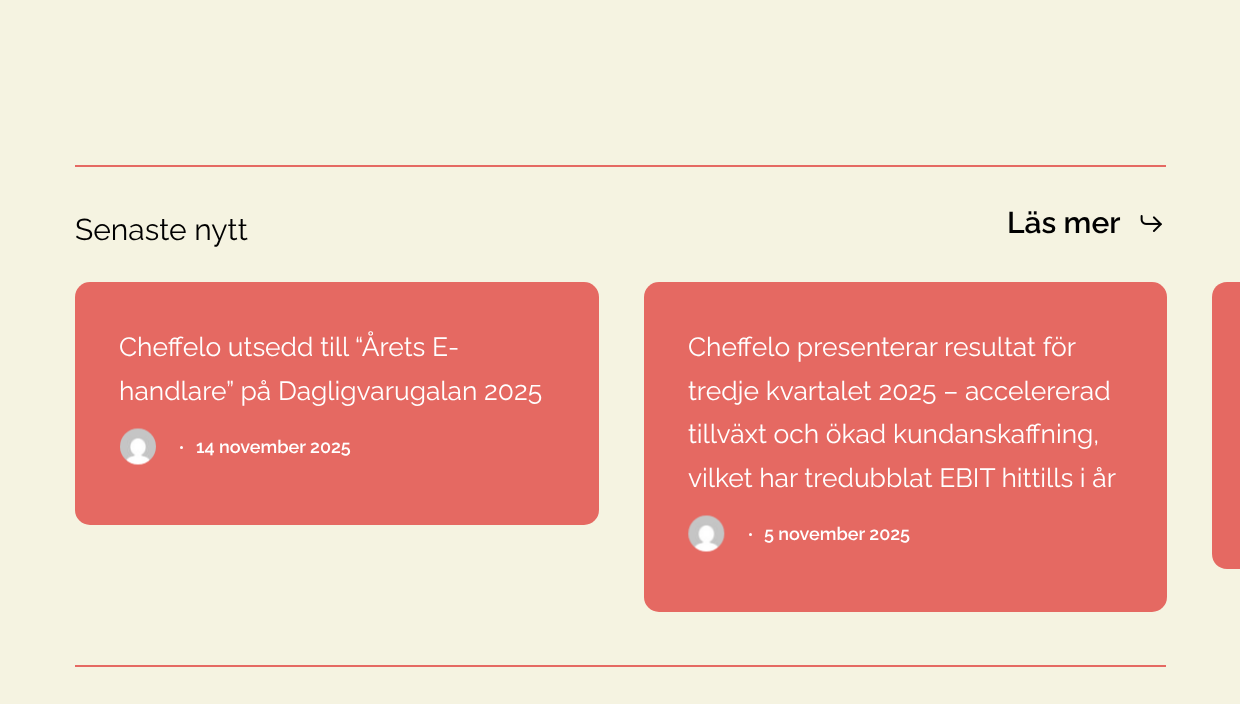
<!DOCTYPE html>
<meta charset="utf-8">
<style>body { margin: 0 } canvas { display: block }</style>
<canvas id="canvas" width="1240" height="704"></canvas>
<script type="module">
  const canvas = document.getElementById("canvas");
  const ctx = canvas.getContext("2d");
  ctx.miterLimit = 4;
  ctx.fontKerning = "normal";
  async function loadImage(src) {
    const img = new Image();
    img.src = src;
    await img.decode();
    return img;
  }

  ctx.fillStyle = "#f5f3e1";
  ctx.fillRect(0, 0, 1240, 704);
  ctx.fillStyle = "#e56962";
  ctx.fillRect(75, 165, 1091, 2);
  ctx.font = "30px Raleway";
  ctx.fillStyle = "#000000";
  ctx.fillText("Senaste nytt", 75, 240);
  ctx.font = "600 30px Raleway";
  ctx.fillText("Läs mer", 1007, 233);
  ctx.drawImage(await loadImage("img1.png"), 1140, 215, 22, 17);
  ctx.fillStyle = "#e56962";
  ctx.beginPath();
  ctx.roundRect(75, 282, 524, 243, 15);
  ctx.fill();
  ctx.font = "26.4px Raleway";
  ctx.fillStyle = "#ffffff";
  ctx.fillText("Cheffelo utsedd till “Årets E-", 119, 356);
  ctx.fillText("handlare” på Dagligvarugalan 2025", 119, 400);
  ctx.drawImage(await loadImage("img2.png"), 120, 428, 36, 37);
  ctx.beginPath();
  ctx.arc(181.5, 447.5, 1.5, 0, Math.PI * 2);
  ctx.fill();
  ctx.font = "600 18px Raleway";
  ctx.fillText("14 november 2025", 196, 453);
  ctx.fillStyle = "#e56962";
  ctx.beginPath();
  ctx.roundRect(644, 282, 523, 330, 15);
  ctx.fill();
  ctx.font = "26.4px Raleway";
  ctx.fillStyle = "#ffffff";
  ctx.fillText("Cheffelo presenterar resultat för", 688, 356);
  ctx.fillText("tredje kvartalet 2025 – accelererad", 688, 400);
  ctx.fillText("tillväxt och ökad kundanskaffning,", 688, 443);
  ctx.fillText("vilket har tredubblat EBIT hittills i år", 688, 487);
  ctx.drawImage(await loadImage("img3.png"), 688, 515, 37, 37);
  ctx.beginPath();
  ctx.arc(750.5, 534.5, 1.5, 0, Math.PI * 2);
  ctx.fill();
  ctx.font = "600 18px Raleway";
  ctx.fillText("5 november 2025", 764, 540);
  ctx.fillStyle = "#e56962";
  ctx.beginPath();
  ctx.moveTo(1227, 282);
  ctx.lineTo(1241, 282);
  ctx.lineTo(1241, 569);
  ctx.lineTo(1227, 569);
  ctx.bezierCurveTo(1218.5, 569, 1212, 562.5, 1212, 554);
  ctx.lineTo(1212, 297);
  ctx.bezierCurveTo(1212, 288.5, 1218.5, 282, 1227, 282);
  ctx.closePath();
  ctx.fill();
  ctx.fillRect(75, 665, 1091, 2);
</script>
